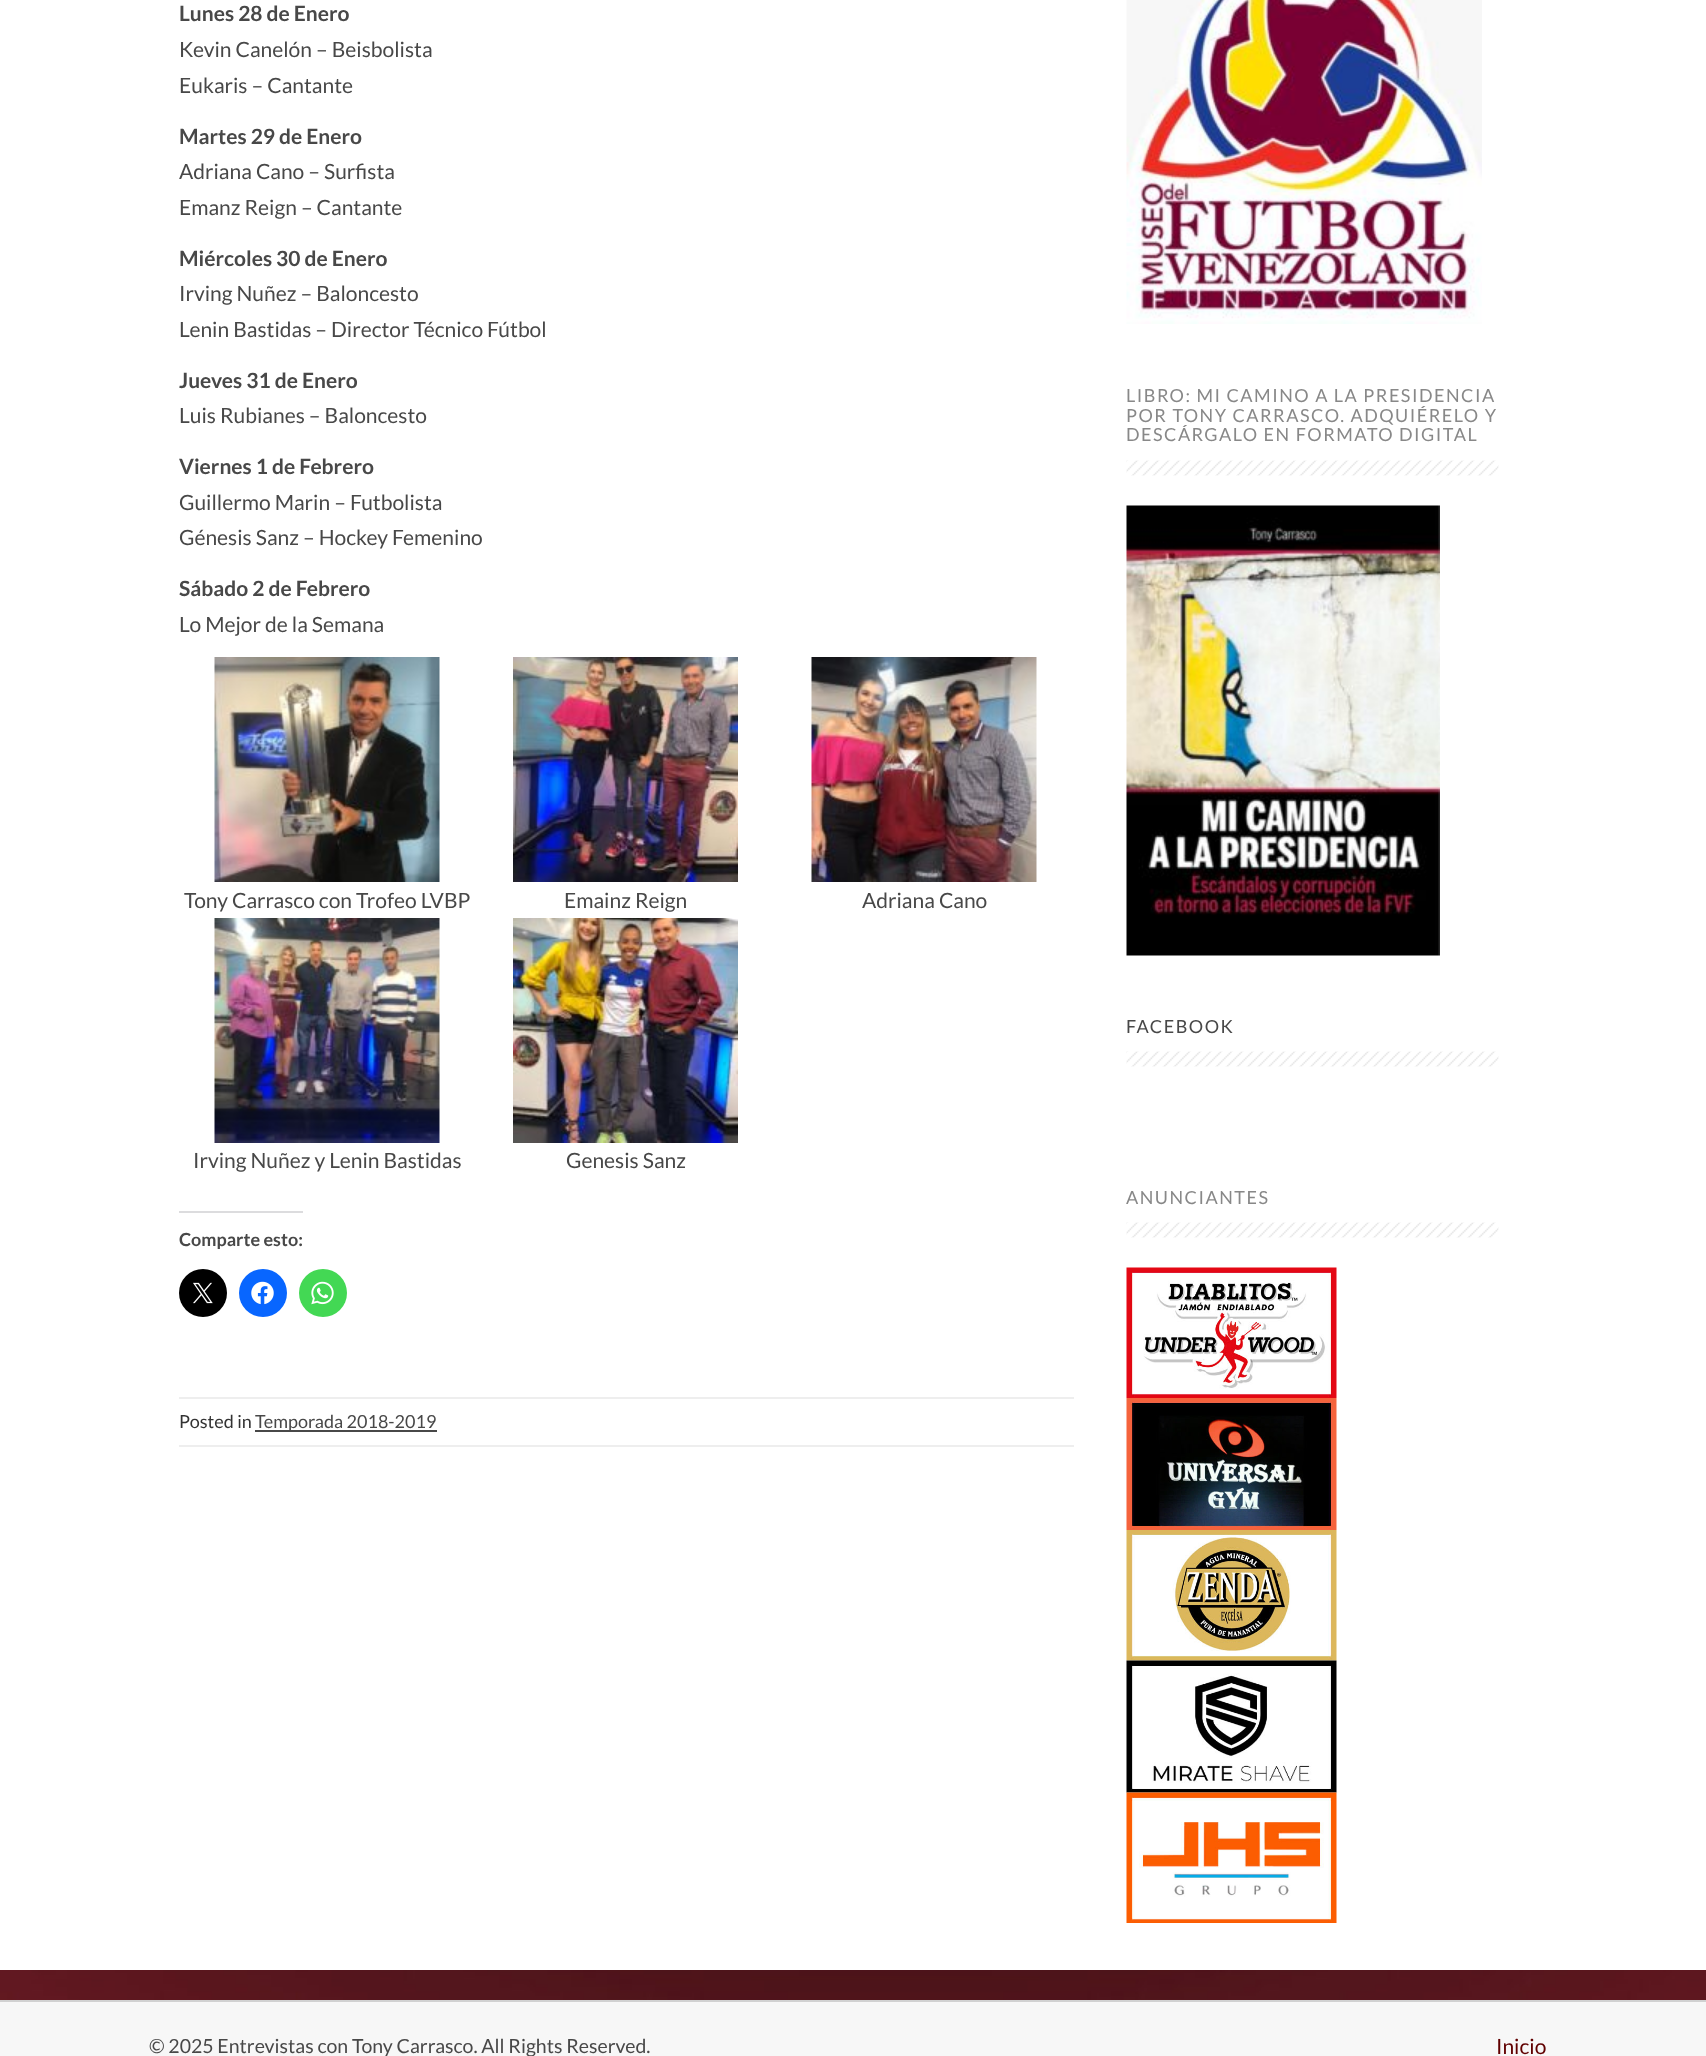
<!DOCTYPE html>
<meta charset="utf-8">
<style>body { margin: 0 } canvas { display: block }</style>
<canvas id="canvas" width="1706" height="2056"></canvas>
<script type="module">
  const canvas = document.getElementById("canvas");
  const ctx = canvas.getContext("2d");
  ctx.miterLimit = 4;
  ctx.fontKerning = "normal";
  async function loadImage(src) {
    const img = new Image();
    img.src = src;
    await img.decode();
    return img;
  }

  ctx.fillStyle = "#ffffff";
  ctx.fillRect(0, 0, 1706, 2056);
  ctx.drawImage(await loadImage("img1.png"), 0, 1970, 1706, 30);
  ctx.font = "bold 21px Lato";
  ctx.fillStyle = "#484848";
  ctx.fillText("Lunes 28 de Enero", 179, 21);
  ctx.font = "21px Lato";
  ctx.fillText("Kevin Canelón – Beisbolista", 179, 57);
  ctx.fillText("Eukaris – Cantante", 179, 93);
  ctx.font = "bold 21px Lato";
  ctx.fillText("Martes 29 de Enero", 179, 144);
  ctx.font = "21px Lato";
  ctx.fillText("Adriana Cano – Surfista", 179, 179);
  ctx.fillText("Emanz Reign – Cantante", 179, 215);
  ctx.font = "bold 21px Lato";
  ctx.fillText("Miércoles 30 de Enero", 179, 266);
  ctx.font = "21px Lato";
  ctx.fillText("Irving Nuñez – Baloncesto", 179, 301);
  ctx.fillText("Lenin Bastidas – Director Técnico Fútbol", 179, 337);
  ctx.font = "bold 21px Lato";
  ctx.fillText("Jueves 31 de Enero", 179, 388);
  ctx.font = "21px Lato";
  ctx.fillText("Luis Rubianes – Baloncesto", 179, 423);
  ctx.font = "bold 21px Lato";
  ctx.fillText("Viernes 1 de Febrero", 179, 474);
  ctx.font = "21px Lato";
  ctx.fillText("Guillermo Marin – Futbolista", 179, 510);
  ctx.fillText("Génesis Sanz – Hockey Femenino", 179, 545);
  ctx.font = "bold 21px Lato";
  ctx.fillText("Sábado 2 de Febrero", 179, 596);
  ctx.font = "21px Lato";
  ctx.fillText("Lo Mejor de la Semana", 179, 632);
  ctx.drawImage(await loadImage("img2.png"), 214, 657, 226, 225);
  ctx.fillText("Tony Carrasco con Trofeo LVBP", 184, 908);
  ctx.drawImage(await loadImage("img3.png"), 513, 657, 225, 225);
  ctx.fillText("Emainz Reign", 564, 908);
  ctx.drawImage(await loadImage("img4.png"), 811, 657, 226, 225);
  ctx.fillText("Adriana Cano", 862, 908);
  ctx.drawImage(await loadImage("img5.png"), 214, 918, 226, 225);
  ctx.fillText("Irving Nuñez y Lenin Bastidas", 193, 1168);
  ctx.drawImage(await loadImage("img6.png"), 513, 918, 225, 225);
  ctx.fillText("Genesis Sanz", 566, 1168);
  ctx.fillStyle = "#dcdcde";
  ctx.fillRect(179, 1211, 124, 2);
  ctx.font = "bold 18px Lato";
  ctx.fillStyle = "#484848";
  ctx.fillText("Comparte esto:", 179, 1246);
  ctx.fillStyle = "#000000";
  ctx.beginPath();
  ctx.arc(203, 1293, 24, 0, Math.PI * 2);
  ctx.fill();
  ctx.drawImage(await loadImage("img7.png"), 193, 1282, 20, 22);
  ctx.fillStyle = "#0866ff";
  ctx.beginPath();
  ctx.arc(263, 1293, 24, 0, Math.PI * 2);
  ctx.fill();
  ctx.drawImage(await loadImage("img8.png"), 251, 1281, 23, 24);
  ctx.fillStyle = "#43d854";
  ctx.beginPath();
  ctx.arc(323, 1293, 24, 0, Math.PI * 2);
  ctx.fill();
  ctx.drawImage(await loadImage("img9.png"), 311, 1281, 23, 24);
  ctx.fillStyle = "#eeeeee";
  ctx.fillRect(179, 1397, 895, 2);
  ctx.fillRect(179, 1445, 895, 2);
  ctx.font = "18px Lato";
  ctx.fillStyle = "#333333";
  ctx.fillText("Posted in", 179, 1428);
  ctx.fillStyle = "#484848";
  ctx.fillRect(255, 1430, 182, 2);
  ctx.fillText("Temporada 2018-2019", 255, 1428);
  ctx.drawImage(await loadImage("img10.png"), 1126, 0, 356, 324);
  ctx.letterSpacing = "1.5px";
  ctx.fillStyle = "#888888";
  ctx.fillText("LIBRO: MI CAMINO A LA PRESIDENCIA", 1126, 402);
  ctx.fillText("POR TONY CARRASCO. ADQUIÉRELO Y", 1126, 422);
  ctx.fillText("DESCÁRGALO EN FORMATO DIGITAL", 1126, 441);
  ctx.drawImage(await loadImage("img11.png"), 1126, 460, 373, 16);
  ctx.drawImage(await loadImage("img12.png"), 1126, 505, 314, 451);
  ctx.fillStyle = "#484848";
  ctx.fillText("FACEBOOK", 1126, 1033);
  ctx.drawImage(await loadImage("img11.png"), 1126, 1051, 373, 16);
  ctx.fillStyle = "#888888";
  ctx.fillText("ANUNCIANTES", 1126, 1204);
  ctx.drawImage(await loadImage("img11.png"), 1126, 1222, 373, 16);
  ctx.drawImage(await loadImage("img13.png"), 1126, 1267, 211, 131);
  ctx.drawImage(await loadImage("img14.png"), 1126, 1398, 211, 132);
  ctx.drawImage(await loadImage("img15.png"), 1126, 1530, 211, 131);
  ctx.drawImage(await loadImage("img16.png"), 1126, 1660, 211, 133);
  ctx.drawImage(await loadImage("img17.png"), 1126, 1792, 211, 131);
  ctx.fillStyle = "#f7f7f7";
  ctx.fillRect(0, 2002, 1706, 54);
  ctx.fillStyle = "#d1d1d1";
  ctx.fillRect(0, 2000, 1706, 2);
  ctx.letterSpacing = "0px";
  ctx.font = "19.5px Lato";
  ctx.fillStyle = "#484848";
  ctx.fillText("© 2025 Entrevistas con Tony Carrasco. All Rights Reserved.", 149, 2053);
  ctx.font = "21px Lato";
  ctx.fillStyle = "#600000";
  ctx.fillText("Inicio", 1496, 2054);
</script>
